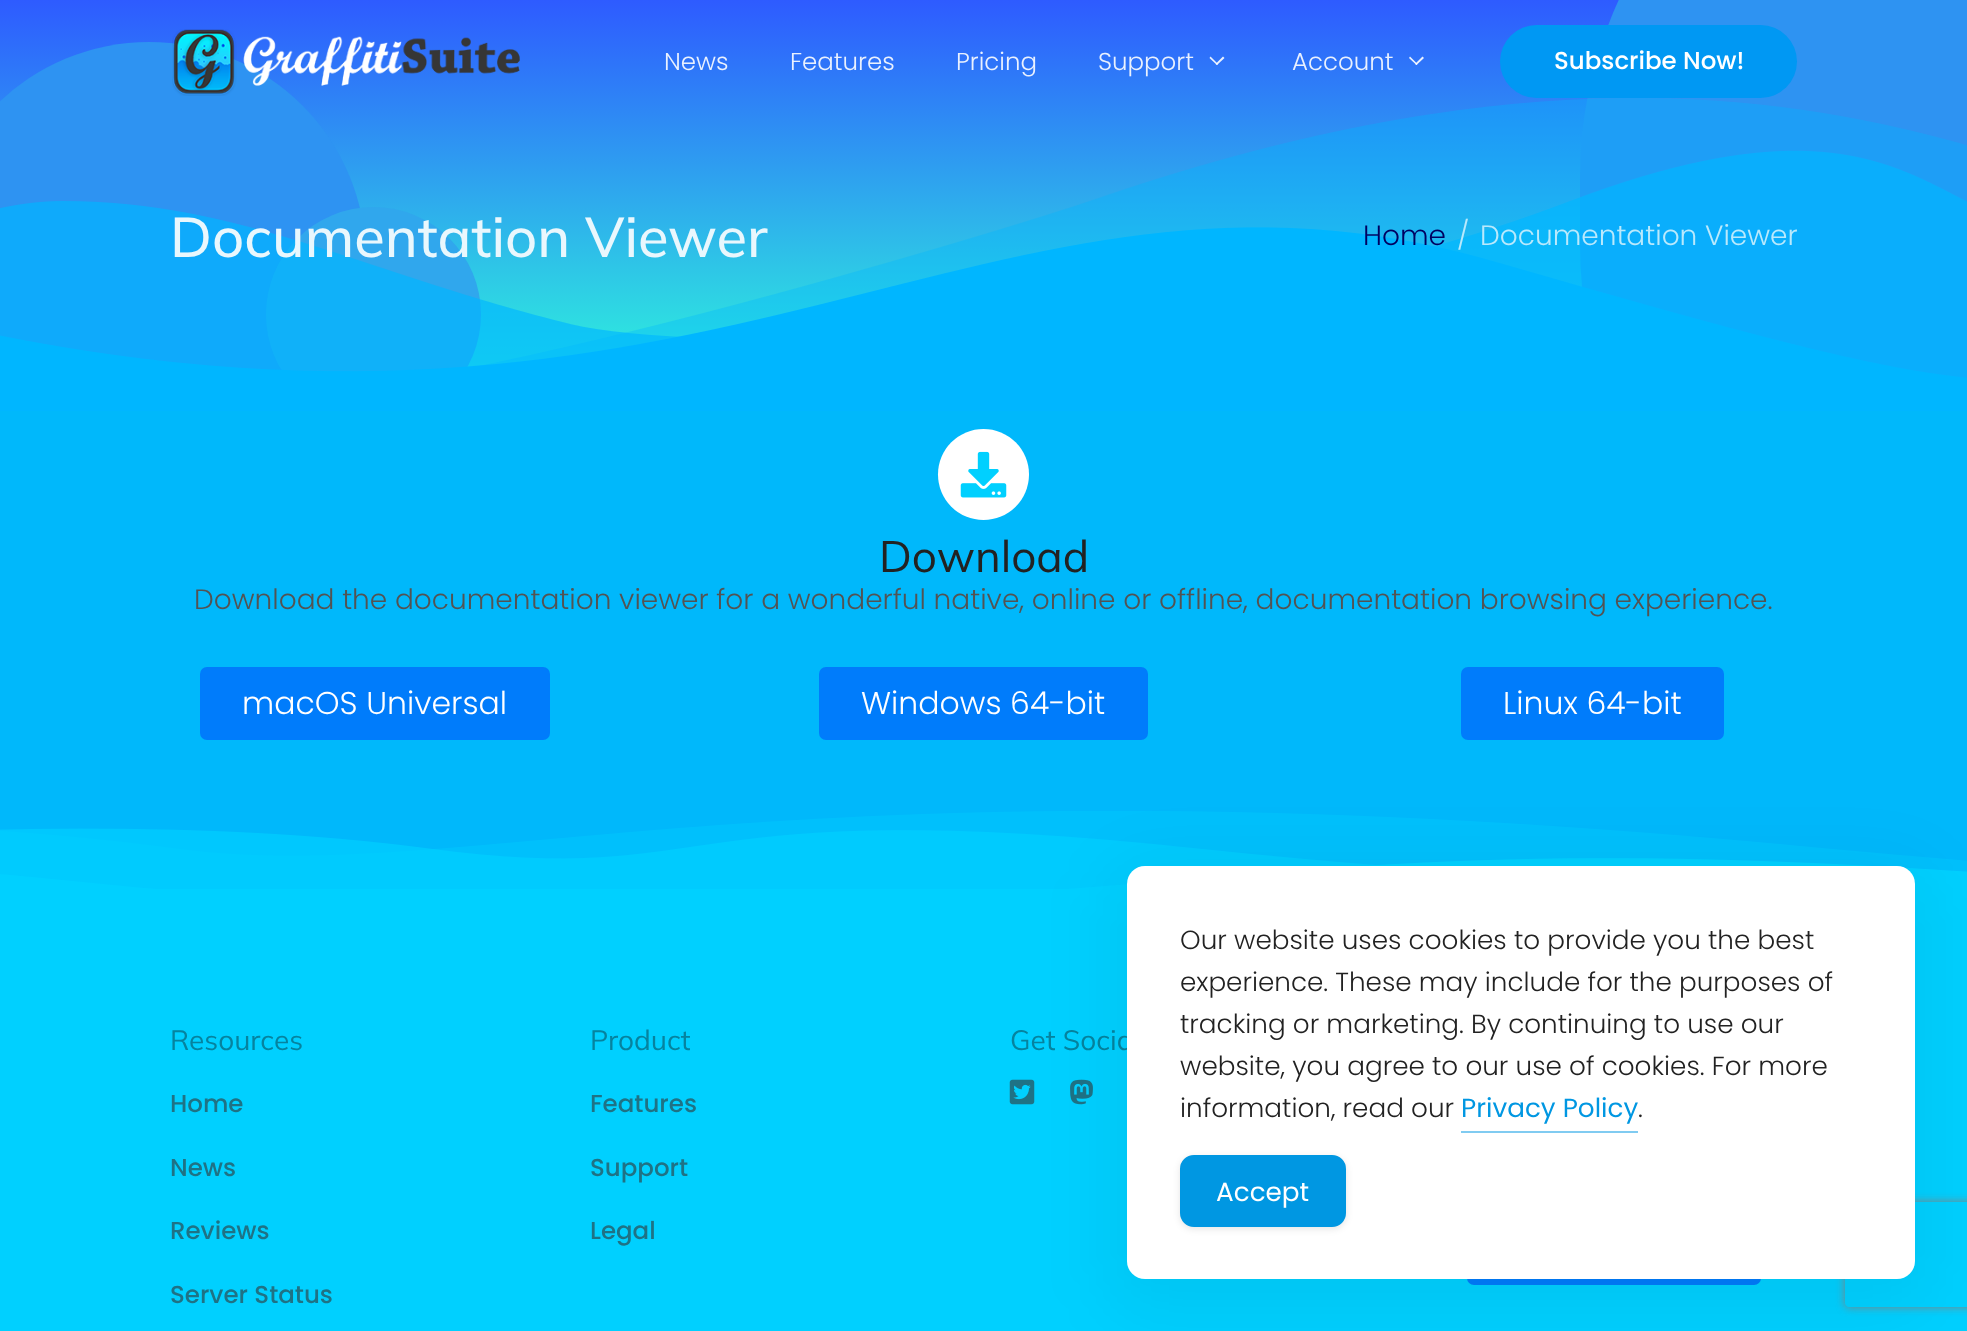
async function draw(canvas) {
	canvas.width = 1967;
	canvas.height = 1331;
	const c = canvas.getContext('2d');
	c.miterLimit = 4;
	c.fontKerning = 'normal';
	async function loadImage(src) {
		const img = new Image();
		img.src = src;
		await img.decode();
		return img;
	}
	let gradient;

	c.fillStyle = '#00b8fb';
	c.fillRect(0, 0, 1967, 1331);
	gradient = c.createLinearGradient(984, 0, 984, 411);
	gradient.addColorStop(0, '#2e5bff');
	gradient.addColorStop(1, '#2effda');
	c.fillStyle = gradient;
	c.fillRect(0, 0, 1632, 367);
	c.save();
	c.beginPath();
	c.rect(0, 0, 1967, 411);
	c.clip();
	c.fillStyle = '#2e93f2';
	c.beginPath();
	c.arc(149, 259, 217, 0, 2 * Math.PI);
	c.fill();
	c.restore();
	c.drawImage(await loadImage('img1.png'), 172, 29, 348, 67);
	c.font = '300 24.5px Poppins';
	c.fillStyle = '#eaf1fe';
	for (const [text, x, y] of [
		['News', 664, 70],
		['Features', 790, 70],
		['Pricing', 956, 70],
		['Support', 1098, 70],
	]) {
		c.fillText(text, x, y);
	}
	c.fillStyle = '#ffffffe6';
	c.beginPath();
	c.moveTo(1223, 56.5);
	c.lineTo(1224.5, 58);
	c.lineTo(1217, 65);
	c.lineTo(1215.5, 64);
	c.closePath();
	c.fill();
	c.beginPath();
	c.moveTo(1210.5, 56.5);
	c.lineTo(1218, 64);
	c.lineTo(1217, 65);
	c.lineTo(1209.5, 58);
	c.closePath();
	c.fill();
	c.fillStyle = '#eaf1fe';
	c.fillText('Account', 1292, 70);
	c.fillStyle = '#ffffffe6';
	c.beginPath();
	c.moveTo(1422.5, 56.5);
	c.lineTo(1424, 58);
	c.lineTo(1416.5, 65);
	c.lineTo(1415, 64);
	c.closePath();
	c.fill();
	c.beginPath();
	c.moveTo(1410, 56.5);
	c.lineTo(1417.5, 64);
	c.lineTo(1416.5, 65);
	c.lineTo(1409, 58);
	c.closePath();
	c.fill();
	c.save();
	c.beginPath();
	c.rect(0, 0, 1967, 411);
	c.clip();
	c.fillStyle = '#2e93f2';
	c.beginPath();
	c.roundRect(1580, -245, 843, 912, 456);
	c.fill();
	c.restore();
	c.fillStyle = '#0098f3';
	c.beginPath();
	c.roundRect(1500, 25, 297, 73, 36.5);
	c.fill();
	c.font = '500 24.5px Poppins';
	c.fillStyle = '#fff';
	c.fillText('Subscribe Now!', 1554, 69);
	c.save();
	c.beginPath();
	c.rect(0, 0, 1967, 411);
	c.clip();
	c.fillStyle = '#30a7ed';
	c.beginPath();
	c.arc(373.5, 314.5, 107.5, 0, 2 * Math.PI);
	c.fill();
	c.restore();
	c.drawImage(await loadImage('img2.png'), 0, 98, 1967, 313);
	c.font = '500 56px Mulish';
	c.fillStyle = '#e9f7fd';
	c.fillText('Documentation Viewer', 170, 257);
	c.font = '300 28px Poppins';
	c.fillStyle = '#000060';
	c.fillText('Home', 1363, 245);
	c.fillStyle = '#bae9fc';
	c.fillText('/', 1457, 245);
	c.fillText('Documentation Viewer', 1480, 245);
	c.fillStyle = '#fff';
	c.beginPath();
	c.arc(983.5, 474.5, 45.5, 0, 2 * Math.PI);
	c.fill();
	c.drawImage(await loadImage('img3.png'), 960, 451, 47, 47);
	c.font = '44px Mulish';
	c.fillStyle = '#222';
	c.fillText('Download', 879, 572);
	c.font = '300 28px Poppins';
	c.fillStyle = '#535353';
	c.fillText('Download the documentation viewer for a wonderful native, online or offline, documentation browsing experience.', 194, 609);
	c.fillStyle = '#007cfb';
	c.beginPath();
	c.roundRect(200, 667, 350, 73, 7);
	c.fill();
	c.font = '300 31.5px Poppins';
	c.fillStyle = '#fff';
	c.fillText('macOS Universal', 242, 714);
	c.fillStyle = '#007cfb';
	c.beginPath();
	c.roundRect(819, 667, 329, 73, 7);
	c.fill();
	c.fillStyle = '#fff';
	c.fillText('Windows 64-bit', 861, 714);
	c.fillStyle = '#007cfb';
	c.beginPath();
	c.roundRect(1461, 667, 263, 73, 7);
	c.fill();
	c.fillStyle = '#fff';
	c.fillText('Linux 64-bit', 1503, 714);
	c.fillStyle = '#00d0ff';
	c.fillRect(0, 889, 1967, 442);
	c.drawImage(await loadImage('img4.png'), 0, 811, 1967, 78);
	c.font = '28px Mulish';
	c.fillStyle = '#06839f';
	c.fillText('Resources', 170, 1050);
	c.font = '500 24.5px Poppins';
	c.fillStyle = '#1f7285';
	for (const [text, x, y] of [
		['Home', 170, 1112],
		['News', 170, 1176],
		['Reviews', 170, 1239],
		['Server Status', 170, 1303],
	]) {
		c.fillText(text, x, y);
	}
	c.font = '28px Mulish';
	c.fillStyle = '#06839f';
	c.fillText('Product', 590, 1050);
	c.font = '500 24.5px Poppins';
	c.fillStyle = '#1f7285';
	for (const [text, x, y] of [
		['Features', 590, 1112],
		['Support', 590, 1176],
		['Legal', 590, 1239],
	]) {
		c.fillText(text, x, y);
	}
	c.font = '28px Mulish';
	c.fillStyle = '#06839f';
	c.fillText('Get Socia', 1010, 1050);
	c.drawImage(await loadImage('img5.png'), 1009, 1079, 26, 26);
	c.drawImage(await loadImage('img6.png'), 1070, 1079, 23, 26);
	c.fillStyle = '#007cfb';
	c.beginPath();
	c.roundRect(1467, 1204, 294, 81, 7);
	c.fill();
	c.fillStyle = '#0000000d';
	c.filter = 'blur(35px)';
	c.beginPath();
	c.roundRect(1110, 866, 822, 448, 35);
	c.fill();
	c.filter = 'none';
	c.save();
	c.beginPath();
	c.moveTo(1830, 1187);
	c.lineTo(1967, 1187);
	c.lineTo(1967, 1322);
	c.lineTo(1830, 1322);
	c.closePath();
	c.moveTo(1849, 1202);
	c.lineTo(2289, 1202);
	c.bezierCurveTo(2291, 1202, 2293, 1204, 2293, 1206);
	c.lineTo(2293, 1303);
	c.bezierCurveTo(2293, 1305, 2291, 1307, 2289, 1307);
	c.lineTo(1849, 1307);
	c.bezierCurveTo(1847, 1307, 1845, 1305, 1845, 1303);
	c.lineTo(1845, 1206);
	c.bezierCurveTo(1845, 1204, 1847, 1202, 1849, 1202);
	c.closePath();
	c.clip('evenodd');
	c.fillStyle = '#808080';
	c.filter = 'blur(4.5px)';
	c.beginPath();
	c.roundRect(1845, 1202, 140, 105, 4);
	c.fill();
	c.filter = 'none';
	c.restore();
	c.fillStyle = '#fff';
	c.beginPath();
	c.roundRect(1127, 866, 788, 413, 18);
	c.fill();
	c.font = '300 26.25px Poppins';
	c.fillStyle = '#222';
	for (const [text, x, y] of [
		['Our website uses cookies to provide you the best', 1180, 949],
		['experience. These may include for the purposes of', 1180, 991],
		['tracking or marketing. By continuing to use our', 1180, 1033],
		['website, you agree to our use of cookies. For more', 1180, 1075],
		['information, read our', 1180, 1117],
	]) {
		c.fillText(text, x, y);
	}
	c.font = '26.25px Poppins';
	c.fillStyle = '#0097e2';
	c.fillText('Privacy Policy', 1461, 1117);
	c.fillStyle = '#80cbf1';
	c.fillRect(1461, 1131, 177, 2);
	c.font = '300 26.25px Poppins';
	c.fillStyle = '#222';
	c.fillText('.', 1638, 1117);
	c.fillStyle = '#0000001a';
	c.filter = 'blur(3.5px)';
	c.beginPath();
	c.roundRect(1180, 1157, 166, 72, 14);
	c.fill();
	c.filter = 'none';
	c.fillStyle = '#0097e2';
	c.beginPath();
	c.roundRect(1181, 1156, 164, 70, 13);
	c.fill();
	c.strokeStyle = '#0097e2';
	c.lineWidth = 2;
	c.stroke();
	c.font = '26.25px Poppins';
	c.fillStyle = '#fff';
	c.fillText('Accept', 1216, 1201);
}

draw(document.querySelector('canvas'));
